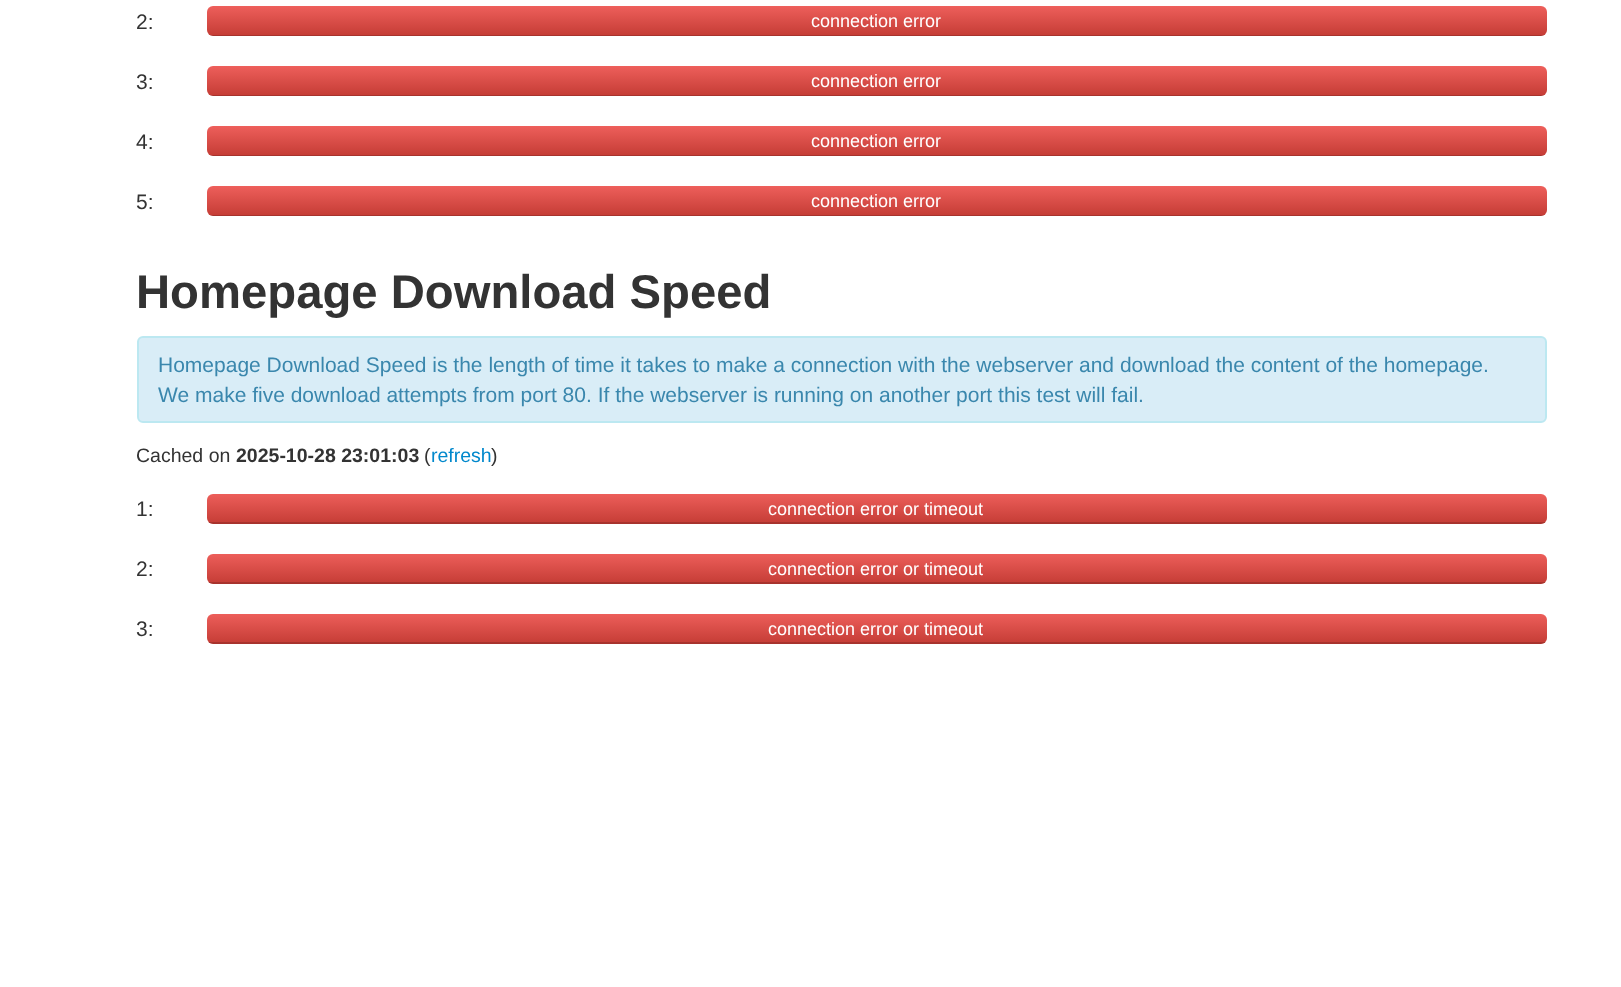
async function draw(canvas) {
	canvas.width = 1621;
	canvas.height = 987;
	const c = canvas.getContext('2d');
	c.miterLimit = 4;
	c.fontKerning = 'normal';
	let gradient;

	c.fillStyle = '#fff';
	c.fillRect(0, 0, 1621, 987);
	c.font = '21px Liberation Sans';
	c.fillStyle = '#333';
	c.fillText('2:', 136, 29);
	gradient = c.createLinearGradient(877, 6, 877, 36);
	gradient.addColorStop(0, '#ee5f5b');
	gradient.addColorStop(1, '#c43c35');
	c.fillStyle = gradient;
	c.beginPath();
	c.roundRect(207, 6, 1340, 30, 6);
	c.fill();
	c.save();
	c.beginPath();
	c.roundRect(207, 6, 1340, 30, 6);
	c.clip();
	c.fillStyle = '#00000026';
	c.fillRect(207, 35, 1340, 1);
	c.restore();
	c.font = '18px Liberation Sans';
	c.fillStyle = '#fff';
	c.fillText('connection error', 811, 27);
	c.font = '21px Liberation Sans';
	c.fillStyle = '#333';
	c.fillText('3:', 136, 89);
	gradient = c.createLinearGradient(877, 66, 877, 96);
	gradient.addColorStop(0, '#ee5f5b');
	gradient.addColorStop(1, '#c43c35');
	c.fillStyle = gradient;
	c.beginPath();
	c.roundRect(207, 66, 1340, 30, 6);
	c.fill();
	c.save();
	c.beginPath();
	c.roundRect(207, 66, 1340, 30, 6);
	c.clip();
	c.fillStyle = '#00000026';
	c.fillRect(207, 95, 1340, 1);
	c.restore();
	c.font = '18px Liberation Sans';
	c.fillStyle = '#fff';
	c.fillText('connection error', 811, 87);
	c.font = '21px Liberation Sans';
	c.fillStyle = '#333';
	c.fillText('4:', 136, 149);
	gradient = c.createLinearGradient(877, 126, 877, 156);
	gradient.addColorStop(0, '#ee5f5b');
	gradient.addColorStop(1, '#c43c35');
	c.fillStyle = gradient;
	c.beginPath();
	c.roundRect(207, 126, 1340, 30, 6);
	c.fill();
	c.save();
	c.beginPath();
	c.roundRect(207, 126, 1340, 30, 6);
	c.clip();
	c.fillStyle = '#00000026';
	c.fillRect(207, 155, 1340, 1);
	c.restore();
	c.font = '18px Liberation Sans';
	c.fillStyle = '#fff';
	c.fillText('connection error', 811, 147);
	c.font = '21px Liberation Sans';
	c.fillStyle = '#333';
	c.fillText('5:', 136, 209);
	gradient = c.createLinearGradient(877, 186, 877, 216);
	gradient.addColorStop(0, '#ee5f5b');
	gradient.addColorStop(1, '#c43c35');
	c.fillStyle = gradient;
	c.beginPath();
	c.roundRect(207, 186, 1340, 30, 6);
	c.fill();
	c.save();
	c.beginPath();
	c.roundRect(207, 186, 1340, 30, 6);
	c.clip();
	c.fillStyle = '#00000026';
	c.fillRect(207, 215, 1340, 1);
	c.restore();
	c.font = '18px Liberation Sans';
	c.fillStyle = '#fff';
	c.fillText('connection error', 811, 207);
	c.font = 'bold 47.25px Liberation Sans';
	c.fillStyle = '#333';
	c.fillText('Homepage Download Speed', 136, 308);
	c.fillStyle = '#d9edf7';
	c.beginPath();
	c.roundRect(138, 337, 1408, 85, 5);
	c.fill();
	c.strokeStyle = '#bce8f1';
	c.lineWidth = 2;
	c.stroke();
	c.font = '21px Liberation Sans';
	c.fillStyle = '#3a87ad';
	c.fillText('Homepage Download Speed is the length of time it takes to make a connection with the webserver and download the content of the homepage.', 158, 372);
	c.fillText('We make five download attempts from port 80. If the webserver is running on another port this test will fail.', 158, 402);
	c.font = '19.5px Liberation Sans';
	c.fillStyle = '#333';
	c.fillText('Cached on', 136, 462);
	c.font = 'bold 19.5px Liberation Sans';
	c.fillText('2025-10-28 23:01:03', 236, 462);
	c.font = '19.5px Liberation Sans';
	c.fillText('(', 424, 462);
	c.fillStyle = '#08c';
	c.fillText('refresh', 431, 462);
	c.fillStyle = '#333';
	c.fillText(')', 491, 462);
	c.font = '21px Liberation Sans';
	c.fillText('1:', 136, 516);
	gradient = c.createLinearGradient(877, 493, 877, 524);
	gradient.addColorStop(0, '#ee5f5b');
	gradient.addColorStop(1, '#c43c35');
	c.fillStyle = gradient;
	c.beginPath();
	c.roundRect(207, 494, 1340, 30, 6);
	c.fill();
	c.save();
	c.beginPath();
	c.roundRect(207, 494, 1340, 30, 6);
	c.clip();
	c.fillStyle = '#00000026';
	c.fillRect(207, 522, 1340, 2);
	c.restore();
	c.font = '18px Liberation Sans';
	c.fillStyle = '#fff';
	c.fillText('connection error or timeout', 768, 515);
	c.font = '21px Liberation Sans';
	c.fillStyle = '#333';
	c.fillText('2:', 136, 576);
	gradient = c.createLinearGradient(877, 553, 877, 584);
	gradient.addColorStop(0, '#ee5f5b');
	gradient.addColorStop(1, '#c43c35');
	c.fillStyle = gradient;
	c.beginPath();
	c.roundRect(207, 554, 1340, 30, 6);
	c.fill();
	c.save();
	c.beginPath();
	c.roundRect(207, 554, 1340, 30, 6);
	c.clip();
	c.fillStyle = '#00000026';
	c.fillRect(207, 582, 1340, 2);
	c.restore();
	c.font = '18px Liberation Sans';
	c.fillStyle = '#fff';
	c.fillText('connection error or timeout', 768, 575);
	c.font = '21px Liberation Sans';
	c.fillStyle = '#333';
	c.fillText('3:', 136, 636);
	gradient = c.createLinearGradient(877, 613, 877, 644);
	gradient.addColorStop(0, '#ee5f5b');
	gradient.addColorStop(1, '#c43c35');
	c.fillStyle = gradient;
	c.beginPath();
	c.roundRect(207, 614, 1340, 30, 6);
	c.fill();
	c.save();
	c.beginPath();
	c.roundRect(207, 614, 1340, 30, 6);
	c.clip();
	c.fillStyle = '#00000026';
	c.fillRect(207, 642, 1340, 2);
	c.restore();
	c.font = '18px Liberation Sans';
	c.fillStyle = '#fff';
	c.fillText('connection error or timeout', 768, 635);
}

draw(document.querySelector('canvas'));
